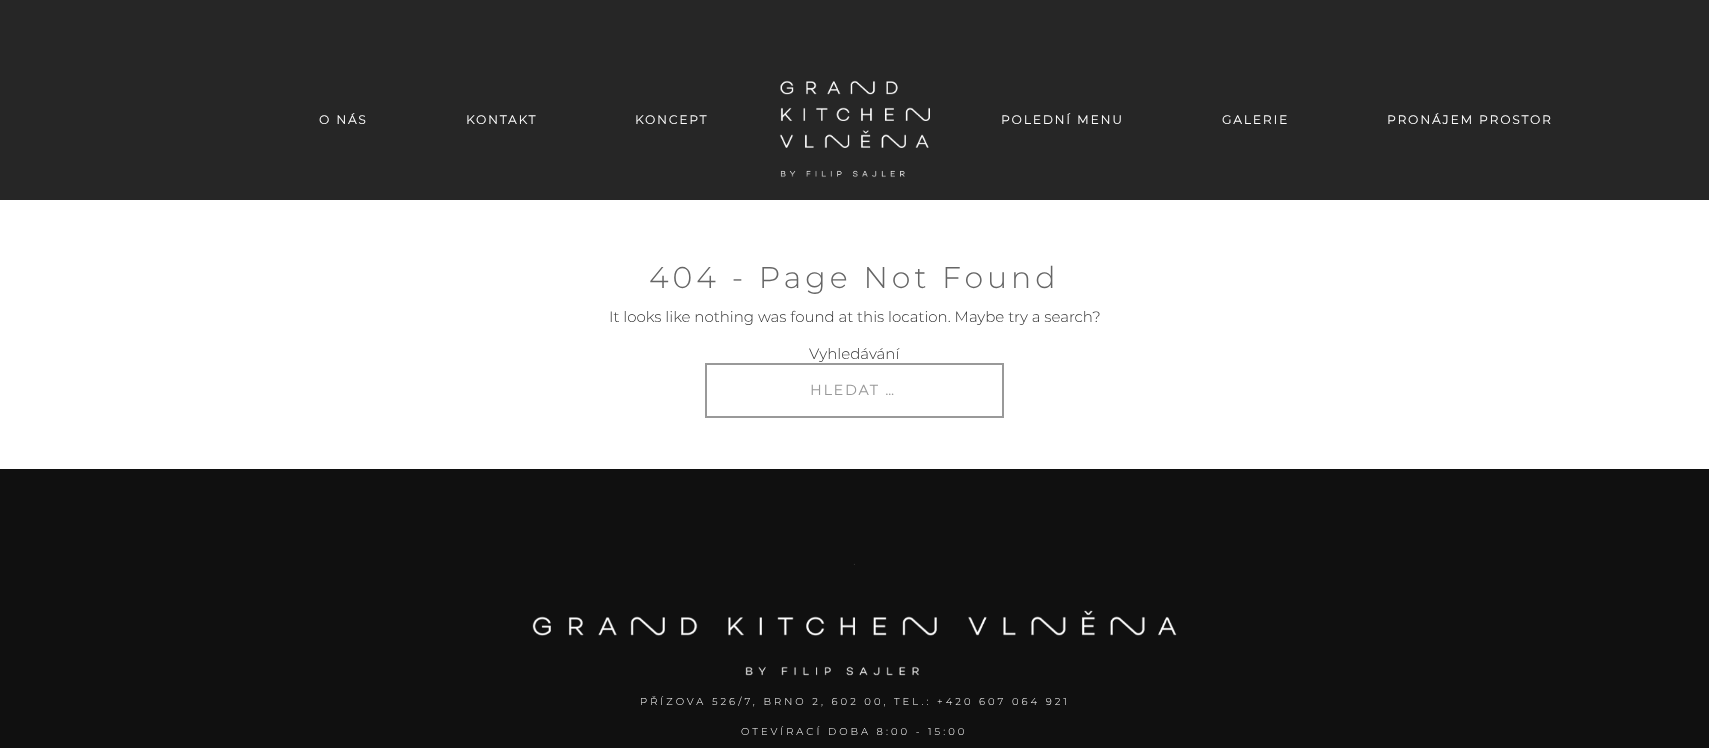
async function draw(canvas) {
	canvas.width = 1709;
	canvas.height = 748;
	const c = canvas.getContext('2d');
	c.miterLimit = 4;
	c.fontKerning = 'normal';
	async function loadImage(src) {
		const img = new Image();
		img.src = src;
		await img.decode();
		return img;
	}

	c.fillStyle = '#fff';
	c.fillRect(0, 0, 1709, 748);
	c.fillStyle = '#262626';
	c.fillRect(0, 0, 1709, 200);
	c.letterSpacing = '2px';
	c.font = 'bold 12px Montserrat';
	c.fillStyle = '#fff';
	for (const [text, x, y] of [
		['O NÁS', 319, 124],
		['KONTAKT', 466, 124],
		['KONCEPT', 635, 124],
	]) {
		c.fillText(text, x, y);
	}
	c.drawImage(await loadImage('img1.png'), 779, 80, 151, 98);
	for (const [text, x, y] of [
		['POLEDNÍ MENU', 1001, 124],
		['GALERIE', 1222, 124],
		['PRONÁJEM PROSTOR', 1387, 124],
	]) {
		c.fillText(text, x, y);
	}
	c.letterSpacing = '4px';
	c.font = '100 30px Montserrat';
	c.fillStyle = '#666';
	c.fillText('404 - Page Not Found', 649, 288);
	c.letterSpacing = '0px';
	c.font = '100 15px Montserrat';
	c.fillStyle = '#333';
	c.fillText('It looks like nothing was found at this location. Maybe try a search?', 609, 322);
	c.fillText('Vyhledávání', 809, 359);
	c.strokeStyle = '#999';
	c.lineWidth = 2;
	c.strokeRect(706, 364, 297, 53);
	c.letterSpacing = '2px';
	c.font = 'bold 14px Montserrat';
	c.fillStyle = '#999';
	c.fillText('HLEDAT …', 810, 395);
	c.fillStyle = '#101010';
	c.fillRect(0, 469, 1709, 279);
	c.letterSpacing = '0px';
	c.font = '100 14px Montserrat';
	c.fillStyle = '#333';
	c.fillText('.', 853, 565);
	c.drawImage(await loadImage('img2.png'), 532, 610, 645, 66);
	c.letterSpacing = '3px';
	c.font = '100 10px Montserrat';
	c.fillStyle = '#fff';
	c.fillText('PŘÍZOVA 526/7, BRNO 2, 602 00, TEL.: +420 607 064 921', 640, 705);
	c.fillText('OTEVÍRACÍ DOBA 8:00 - 15:00', 741, 735);
}

draw(document.querySelector('canvas'));
